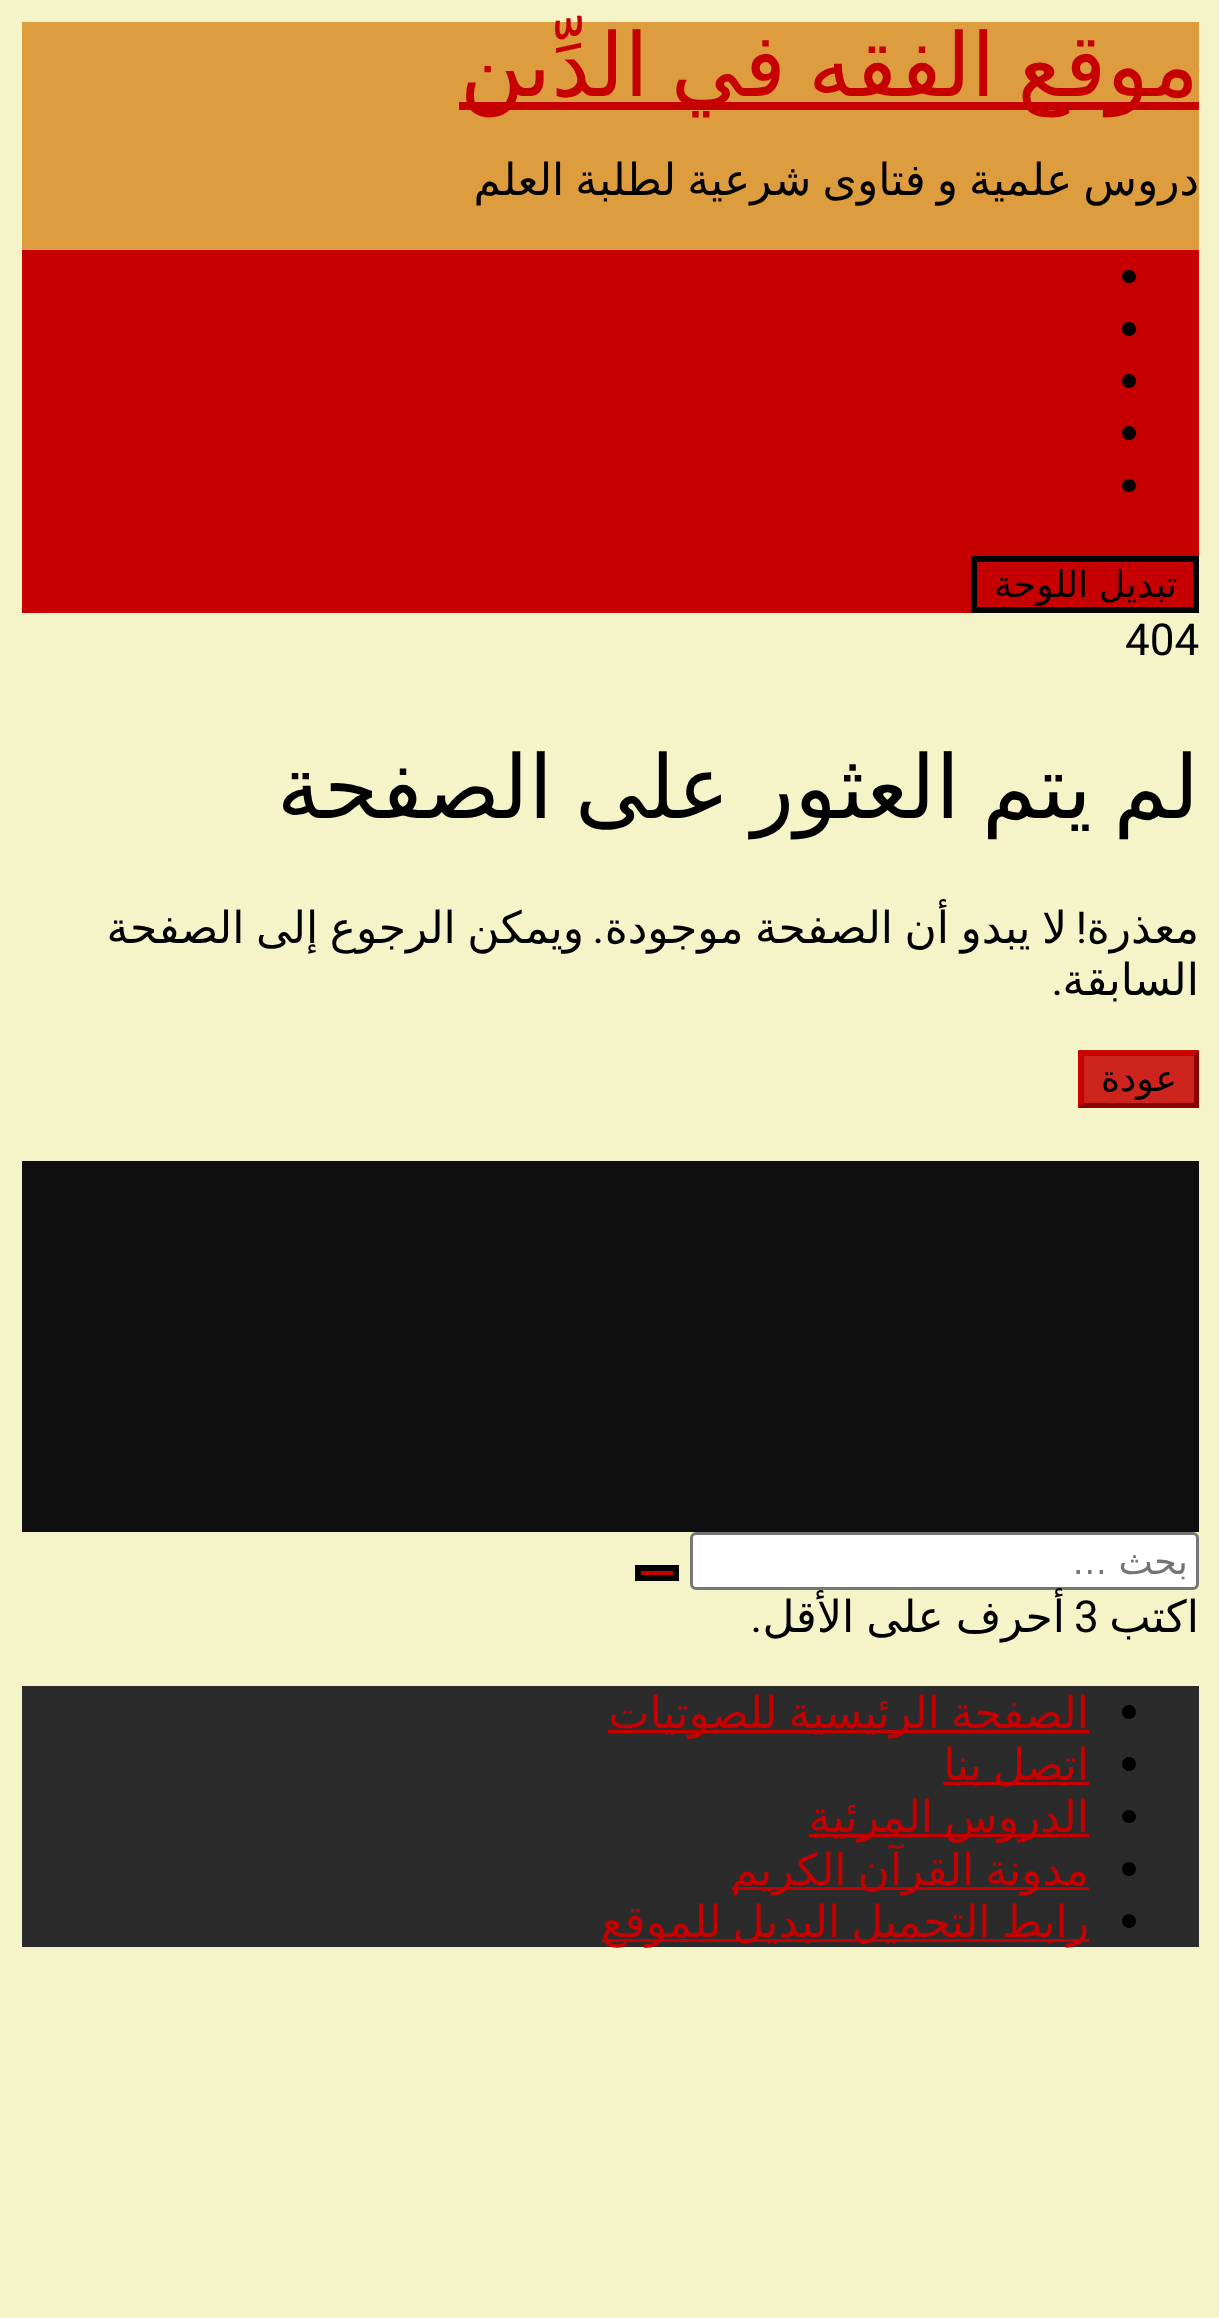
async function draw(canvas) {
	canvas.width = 1219;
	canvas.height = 2318;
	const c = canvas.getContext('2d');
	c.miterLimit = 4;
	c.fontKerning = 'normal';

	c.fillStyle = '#f4f4c8';
	c.fillRect(0, 0, 1219, 2318);
	c.fillStyle = '#dd9d3e';
	c.fillRect(22, 22, 1177, 228);
	c.fillStyle = '#c60000';
	c.fillRect(459, 102, 740, 8);
	c.wordSpacing = '-6px';
	c.direction = 'rtl';
	c.font = '88px DejaVu Sans';
	c.fillText('موقع الفقه في الدِّين', 1199, 96);
	c.wordSpacing = '-3px';
	c.font = '44px DejaVu Sans';
	c.fillStyle = '#000';
	c.fillText('دروس علمية و فتاوى شرعية لطلبة العلم', 1199, 195);
	c.fillStyle = '#c60000';
	c.fillRect(22, 250, 1177, 363);
	c.fillStyle = '#000';
	c.beginPath();
	c.roundRect(1122, 270, 14, 13, 6.5);
	c.fill();
	c.beginPath();
	c.arc(1129, 329, 7, 0, 2 * Math.PI);
	c.fill();
	c.beginPath();
	c.arc(1129, 381, 7, 0, 2 * Math.PI);
	c.fill();
	c.beginPath();
	c.arc(1129, 433, 7, 0, 2 * Math.PI);
	c.fill();
	c.beginPath();
	c.roundRect(1122, 479, 14, 13, 6.5);
	c.fill();
	c.strokeStyle = '#000';
	c.lineWidth = 6;
	c.strokeRect(974, 559, 222, 51);
	c.wordSpacing = '-1px';
	c.font = '36.5px DejaVu Sans';
	c.fillText('تبديل اللوحة', 1177, 597);
	c.wordSpacing = '0px';
	c.direction = 'ltr';
	c.font = '44px Roboto';
	c.fillText('404', 1125, 655);
	c.wordSpacing = '-6px';
	c.direction = 'rtl';
	c.font = '88px DejaVu Sans';
	c.fillText('لم يتم العثور على الصفحة', 1199, 818);
	c.wordSpacing = '0px';
	c.font = '44px DejaVu Sans';
	c.fillText('معذرة', 1199, 943);
	c.font = '44px Roboto';
	c.fillText('!', 1087, 943);
	c.wordSpacing = '-2.5px';
	c.font = '44px DejaVu Sans';
	c.fillText('لا يبدو أن الصفحة موجودة', 1067, 943);
	c.wordSpacing = '0px';
	c.font = '44px Roboto';
	c.fillText('.', 604, 943);
	c.wordSpacing = '-2.5px';
	c.font = '44px DejaVu Sans';
	c.fillText('ويمكن الرجوع إلى الصفحة', 584, 943);
	c.wordSpacing = '0px';
	c.fillText('السابقة', 1199, 995);
	c.font = '44px Roboto';
	c.fillText('.', 1063, 995);
	c.fillStyle = '#cd251e';
	c.fillRect(1078, 1051, 121, 57);
	c.fillStyle = '#c60000f2';
	c.beginPath();
	c.moveTo(1078, 1050);
	c.lineTo(1199, 1050);
	c.lineTo(1194, 1056);
	c.lineTo(1084, 1056);
	c.closePath();
	c.fill();
	c.fillStyle = '#840000f2';
	c.beginPath();
	c.moveTo(1199, 1050);
	c.lineTo(1199, 1108);
	c.lineTo(1194, 1103);
	c.lineTo(1194, 1056);
	c.closePath();
	c.fill();
	c.beginPath();
	c.moveTo(1199, 1108);
	c.lineTo(1078, 1108);
	c.lineTo(1084, 1103);
	c.lineTo(1194, 1103);
	c.closePath();
	c.fill();
	c.fillStyle = '#c60000f2';
	c.beginPath();
	c.moveTo(1078, 1108);
	c.lineTo(1078, 1050);
	c.lineTo(1084, 1056);
	c.lineTo(1084, 1103);
	c.closePath();
	c.fill();
	c.font = '36.5px DejaVu Sans';
	c.fillStyle = '#000';
	c.fillText('عودة', 1177, 1091);
	c.fillStyle = '#0f0f0f';
	c.fillRect(22, 1161, 1177, 371);
	c.fillStyle = '#fff';
	c.beginPath();
	c.roundRect(691.5, 1533.5, 506, 55, 4.5);
	c.fill();
	c.strokeStyle = '#767676';
	c.lineWidth = 3;
	c.stroke();
	c.fillStyle = '#757575';
	c.fillText('بحث', 1188, 1574);
	c.font = '36.5px Liberation Sans';
	c.fillText('…', 1108, 1574);
	c.fillStyle = '#c60000';
	c.beginPath();
	c.rect(638, 1568, 38, 10);
	c.fill();
	c.strokeStyle = '#000';
	c.lineWidth = 6;
	c.stroke();
	c.font = '44px DejaVu Sans';
	c.fillStyle = '#000';
	c.fillText('اكتب', 1199, 1632);
	c.direction = 'ltr';
	c.font = '44px Roboto';
	c.fillText('3', 1074, 1632);
	c.wordSpacing = '-2px';
	c.direction = 'rtl';
	c.font = '44px DejaVu Sans';
	c.fillText('أحرف على الأقل', 1065, 1632);
	c.wordSpacing = '0px';
	c.font = '44px Roboto';
	c.fillText('.', 762, 1632);
	c.fillStyle = '#2b2b2b';
	c.fillRect(22, 1686, 1177, 261);
	c.fillStyle = '#000';
	c.beginPath();
	c.arc(1129, 1712, 7, 0, 2 * Math.PI);
	c.fill();
	c.fillStyle = '#c60000';
	c.fillRect(608, 1730, 481, 3);
	c.wordSpacing = '-3px';
	c.font = '44px DejaVu Sans';
	c.fillText('الصفحة الرئيسية للصوتيات', 1089, 1728);
	c.fillStyle = '#000';
	c.beginPath();
	c.arc(1129, 1764, 7, 0, 2 * Math.PI);
	c.fill();
	c.fillStyle = '#c60000';
	c.fillRect(943, 1782, 146, 3);
	c.fillText('اتصل بنا', 1089, 1780);
	c.fillStyle = '#000';
	c.beginPath();
	c.roundRect(1122, 1810, 14, 13, 6.5);
	c.fill();
	c.fillStyle = '#c60000';
	c.fillRect(809, 1834, 280, 3);
	c.fillText('الدروس المرئية', 1089, 1832);
	c.fillStyle = '#000';
	c.beginPath();
	c.arc(1129, 1869, 7, 0, 2 * Math.PI);
	c.fill();
	c.fillStyle = '#c60000';
	c.fillRect(732, 1887, 357, 3);
	c.fillText('مدونة القرآن الكريم', 1089, 1885);
	c.fillStyle = '#000';
	c.beginPath();
	c.arc(1129, 1921, 7, 0, 2 * Math.PI);
	c.fill();
	c.fillStyle = '#c60000';
	c.fillRect(602, 1939, 487, 3);
	c.fillText('رابط التحميل البديل للموقع', 1089, 1937);
}

draw(document.querySelector('canvas'));
